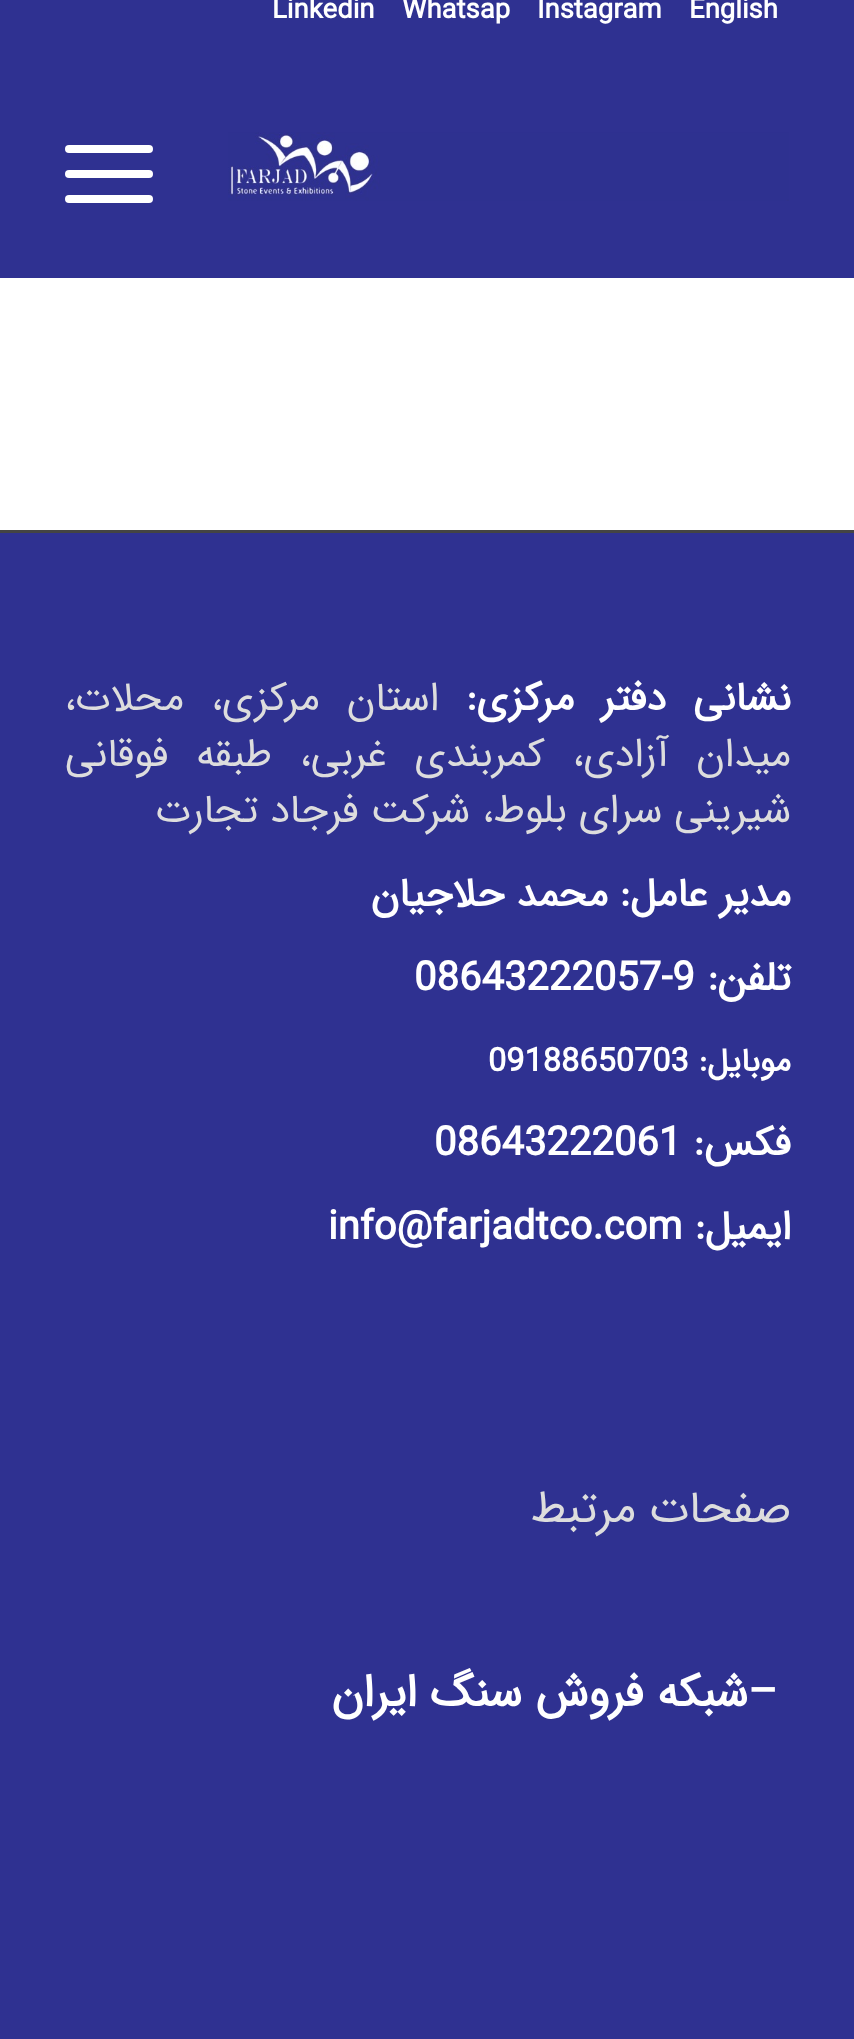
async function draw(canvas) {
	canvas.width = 854;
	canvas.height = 2039;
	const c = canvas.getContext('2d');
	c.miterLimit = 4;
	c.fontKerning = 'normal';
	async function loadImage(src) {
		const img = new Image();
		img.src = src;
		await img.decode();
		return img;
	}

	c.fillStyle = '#2f3191';
	c.fillRect(0, 0, 854, 2039);
	c.font = 'bold 27.5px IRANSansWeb';
	c.fillStyle = '#fff';
	for (const [text, x, y] of [
		['English', 689, 18],
		['Instagram', 537, 18],
		['Whatsap', 402, 18],
		['Linkedin', 272, 18],
	]) {
		c.fillText(text, x, y);
	}
	c.drawImage(await loadImage('img1.png'), 228, 132, 561, 69);
	c.beginPath();
	c.roundRect(65, 170, 88, 8, 4);
	c.fill();
	c.beginPath();
	c.roundRect(65, 145, 88, 8, 4);
	c.fill();
	c.beginPath();
	c.roundRect(65, 195, 88, 8, 4);
	c.fill();
	c.fillRect(0, 278, 854, 252);
	c.fillStyle = '#444';
	c.fillRect(0, 530, 854, 3);
	c.wordSpacing = '15px';
	c.direction = 'rtl';
	c.font = 'bold 40px IRANSansWeb';
	c.fillStyle = '#fff';
	c.fillText('نشانی دفتر مرکزی:', 791, 710);
	c.font = '40px IRANSansWeb';
	c.fillStyle = '#ddd';
	c.fillText('استان مرکزی، محلات،', 439, 710);
	c.wordSpacing = '15.5px';
	c.fillText('میدان آزادی، کمربندی غربی، طبقه فوقانی', 791, 766);
	c.wordSpacing = '0px';
	c.fillText('شیرینی سرای بلوط، شرکت فرجاد تجارت', 791, 822);
	c.font = 'bold 40px IRANSansWeb';
	c.fillStyle = '#fff';
	for (const [text, x, y] of [
		['مدیر عامل:', 791, 906],
		['محمد حلاجیان', 608, 906],
		['تلفن:', 791, 990],
	]) {
		c.fillText(text, x, y);
	}
	c.direction = 'ltr';
	c.fillText('08643222057-9', 414, 990);
	c.direction = 'rtl';
	c.font = 'bold 32.5px IRANSansWeb';
	c.fillText('موبایل:', 791, 1071);
	c.direction = 'ltr';
	c.fillText('09188650703', 488, 1071);
	c.direction = 'rtl';
	c.font = 'bold 40px IRANSansWeb';
	c.fillText('فکس:', 791, 1155);
	c.direction = 'ltr';
	c.fillText('08643222061', 434, 1155);
	c.direction = 'rtl';
	c.fillText('ایمیل:', 791, 1239);
	c.direction = 'ltr';
	c.fillText('info@farjadtco.com', 328, 1239);
	c.direction = 'rtl';
	c.font = '45px IRANSansWeb';
	c.fillStyle = '#ddd';
	c.fillText('صفحات مرتبط', 791, 1522);
	c.direction = 'ltr';
	c.font = 'bold 45px IRANSansWeb';
	c.fillStyle = '#fff';
	c.fillText('–', 748, 1706);
	c.direction = 'rtl';
	c.fillText('شبکه فروش سنگ ایران', 748, 1706);
}

draw(document.querySelector('canvas'));
